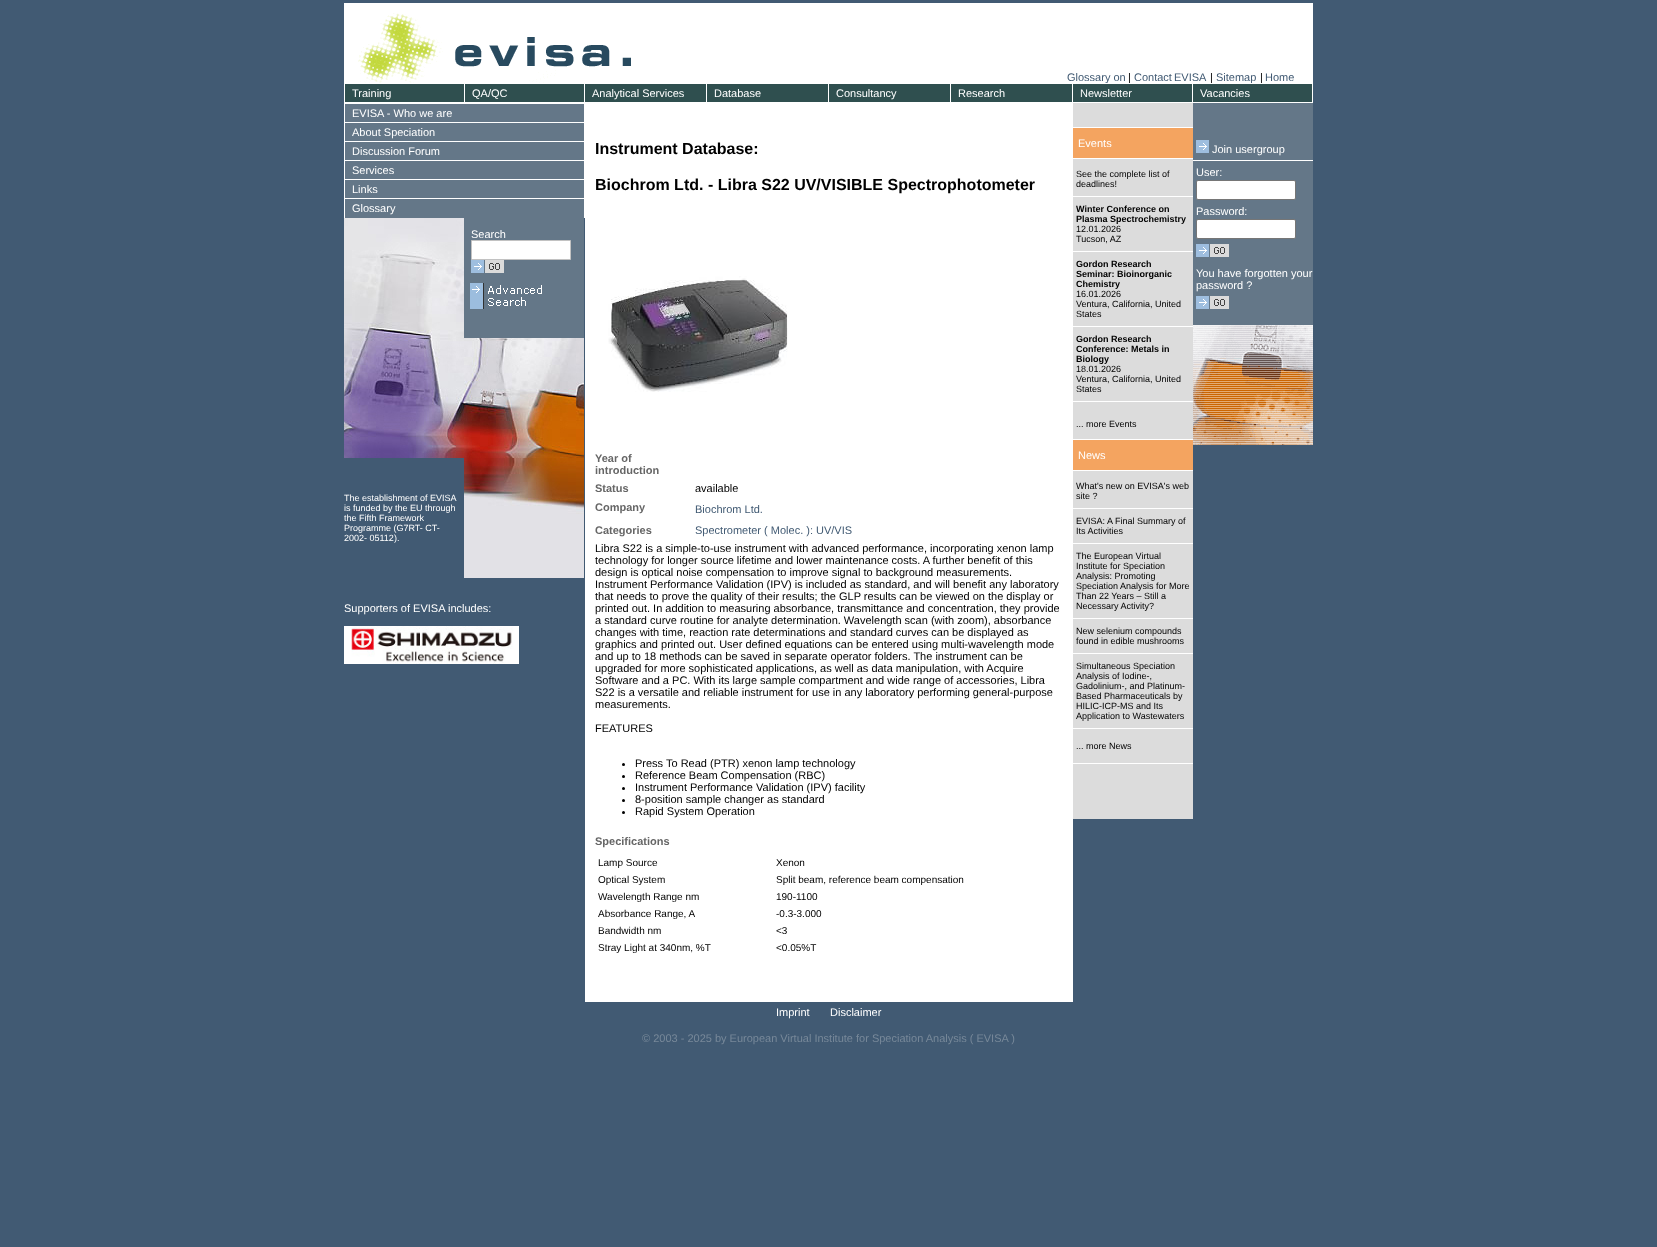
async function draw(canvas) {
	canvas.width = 1657;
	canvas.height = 1247;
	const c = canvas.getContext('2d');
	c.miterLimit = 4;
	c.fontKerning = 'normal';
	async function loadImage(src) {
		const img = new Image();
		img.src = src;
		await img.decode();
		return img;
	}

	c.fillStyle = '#415a73';
	c.fillRect(0, 0, 1657, 1247);
	c.fillStyle = '#fff';
	c.fillRect(344, 3, 969, 80);
	c.drawImage(await loadImage('img1.png'), 358, 13, 273, 70);
	c.font = '11px Liberation Sans';
	c.fillStyle = '#415a73';
	c.fillText('Glossary on', 1067, 81);
	c.fillStyle = '#000';
	c.fillText('|', 1128, 81);
	c.wordSpacing = '-1px';
	c.fillStyle = '#415a73';
	c.fillText('Contact EVISA', 1134, 81);
	c.wordSpacing = '0px';
	c.fillStyle = '#000';
	c.fillText('|', 1210, 81);
	c.fillStyle = '#415a73';
	c.fillText('Sitemap', 1216, 81);
	c.fillStyle = '#000';
	c.fillText('|', 1260, 81);
	c.fillStyle = '#415a73';
	c.fillText('Home', 1265, 81);
	c.fillStyle = '#fff';
	c.fillRect(344, 83, 969, 20);
	c.fillStyle = '#2f4f4f';
	c.fillRect(345, 84, 119, 18);
	c.fillStyle = '#fff';
	c.fillText('Training', 352, 97);
	c.fillStyle = '#2f4f4f';
	c.fillRect(465, 84, 119, 18);
	c.fillStyle = '#fff';
	c.fillText('QA/QC', 472, 97);
	c.fillStyle = '#2f4f4f';
	c.fillRect(585, 84, 121, 18);
	c.fillStyle = '#fff';
	c.fillText('Analytical Services', 592, 97);
	c.fillStyle = '#2f4f4f';
	c.fillRect(707, 84, 121, 18);
	c.fillStyle = '#fff';
	c.fillText('Database', 714, 97);
	c.fillStyle = '#2f4f4f';
	c.fillRect(829, 84, 121, 18);
	c.fillStyle = '#fff';
	c.fillText('Consultancy', 836, 97);
	c.fillStyle = '#2f4f4f';
	c.fillRect(951, 84, 121, 18);
	c.fillStyle = '#fff';
	c.fillText('Research', 958, 97);
	c.fillStyle = '#2f4f4f';
	c.fillRect(1073, 84, 119, 18);
	c.fillStyle = '#fff';
	c.fillText('Newsletter', 1080, 97);
	c.fillStyle = '#2f4f4f';
	c.fillRect(1193, 84, 119, 18);
	c.fillStyle = '#fff';
	c.fillText('Vacancies', 1200, 97);
	c.fillRect(344, 103, 241, 115);
	c.fillStyle = '#647788';
	c.fillRect(345, 104, 239, 18);
	c.fillStyle = '#fff';
	c.fillText('EVISA - Who we are', 352, 117);
	c.fillStyle = '#647788';
	c.fillRect(345, 123, 239, 18);
	c.fillStyle = '#fff';
	c.fillText('About Speciation', 352, 136);
	c.fillStyle = '#647788';
	c.fillRect(345, 142, 239, 18);
	c.fillStyle = '#fff';
	c.fillText('Discussion Forum', 352, 155);
	c.fillStyle = '#647788';
	c.fillRect(345, 161, 239, 18);
	c.fillStyle = '#fff';
	c.fillText('Services', 352, 174);
	c.fillStyle = '#647788';
	c.fillRect(345, 180, 239, 18);
	c.fillStyle = '#fff';
	c.fillText('Links', 352, 193);
	c.fillStyle = '#647788';
	c.fillRect(345, 199, 239, 19);
	c.fillStyle = '#fff';
	c.fillText('Glossary', 352, 212);
	c.drawImage(await loadImage('img2.png'), 344, 218, 120, 120);
	c.fillStyle = '#647788';
	c.fillRect(464, 218, 120, 120);
	c.fillStyle = '#fff';
	c.fillText('Search', 471, 238);
	c.beginPath();
	c.rect(471.5, 240.5, 99, 19);
	c.fill();
	c.strokeStyle = '#c2c2c2';
	c.stroke();
	c.drawImage(await loadImage('img3.png'), 471, 260, 33, 13);
	c.drawImage(await loadImage('img4.png'), 470, 283, 72, 26);
	c.drawImage(await loadImage('img5.png'), 344, 338, 120, 120);
	c.drawImage(await loadImage('img6.png'), 464, 338, 120, 120);
	c.font = '9px Liberation Sans';
	for (const [text, x, y] of [
		['The establishment of EVISA', 344, 501],
		['is funded by the EU through', 344, 511],
		['the Fifth Framework', 344, 521],
		['Programme (G7RT- CT-', 344, 531],
		['2002- 05112).', 344, 541],
	]) {
		c.fillText(text, x, y);
	}
	c.drawImage(await loadImage('img7.png'), 464, 458, 120, 120);
	c.font = '11px Liberation Sans';
	c.fillText('Supporters of EVISA includes:', 344, 612);
	c.drawImage(await loadImage('img8.png'), 344, 626, 175, 38);
	c.fillRect(585, 103, 488, 899);
	c.font = 'bold 16px Liberation Sans';
	c.fillStyle = '#000';
	c.fillText('Instrument Database:', 595, 154);
	c.fillText('Biochrom Ltd. - Libra S22 UV/VISIBLE Spectrophotometer', 595, 190);
	c.drawImage(await loadImage('img9.png'), 608, 276, 180, 116);
	c.font = 'bold 11px Liberation Sans';
	c.fillStyle = '#666';
	for (const [text, x, y] of [
		['Year of', 595, 462],
		['introduction', 595, 474],
		['Status', 595, 492],
	]) {
		c.fillText(text, x, y);
	}
	c.font = '11px Liberation Sans';
	c.fillStyle = '#000';
	c.fillText('available', 695, 492);
	c.font = 'bold 11px Liberation Sans';
	c.fillStyle = '#666';
	c.fillText('Company', 595, 511);
	c.font = '11px Liberation Sans';
	c.fillStyle = '#415a73';
	c.fillText('Biochrom Ltd.', 695, 513);
	c.font = 'bold 11px Liberation Sans';
	c.fillStyle = '#666';
	c.fillText('Categories', 595, 534);
	c.font = '11px Liberation Sans';
	c.fillStyle = '#415a73';
	c.fillText('Spectrometer ( Molec. ): UV/VIS', 695, 534);
	c.fillStyle = '#000';
	for (const [text, x, y] of [
		['Libra S22 is a simple-to-use instrument with advanced performance, incorporating xenon lamp', 595, 552],
		['technology for longer source lifetime and lower maintenance costs. A further benefit of this', 595, 564],
		['design is optical noise compensation to improve signal to background measurements.', 595, 576],
		['Instrument Performance Validation (IPV) is included as standard, and will benefit any laboratory', 595, 588],
		['that needs to prove the quality of their results; the GLP results can be viewed on the display or', 595, 600],
		['printed out. In addition to measuring absorbance, transmittance and concentration, they provide', 595, 612],
		['a standard curve routine for analyte determination. Wavelength scan (with zoom), absorbance', 595, 624],
		['changes with time, reaction rate determinations and standard curves can be displayed as', 595, 636],
		['graphics and printed out. User defined equations can be entered using multi-wavelength mode', 595, 648],
		['and up to 18 methods can be saved in separate operator folders. The instrument can be', 595, 660],
		['upgraded for more sophisticated applications, as well as data manipulation, with Acquire', 595, 672],
		['Software and a PC. With its large sample compartment and wide range of accessories, Libra', 595, 684],
		['S22 is a versatile and reliable instrument for use in any laboratory performing general-purpose', 595, 696],
		['measurements.', 595, 708],
		['FEATURES', 595, 732],
	]) {
		c.fillText(text, x, y);
	}
	c.beginPath();
	c.arc(623.5, 764.5, 1.5, 0, 2 * Math.PI);
	c.fill();
	c.fillText('Press To Read (PTR) xenon lamp technology', 635, 767);
	c.beginPath();
	c.arc(623.5, 776.5, 1.5, 0, 2 * Math.PI);
	c.fill();
	c.fillText('Reference Beam Compensation (RBC)', 635, 779);
	c.beginPath();
	c.arc(623.5, 788.5, 1.5, 0, 2 * Math.PI);
	c.fill();
	c.fillText('Instrument Performance Validation (IPV) facility', 635, 791);
	c.beginPath();
	c.arc(623.5, 800.5, 1.5, 0, 2 * Math.PI);
	c.fill();
	c.fillText('8-position sample changer as standard', 635, 803);
	c.beginPath();
	c.arc(623.5, 812.5, 1.5, 0, 2 * Math.PI);
	c.fill();
	c.fillText('Rapid System Operation', 635, 815);
	c.font = 'bold 11px Liberation Sans';
	c.fillStyle = '#666';
	c.fillText('Specifications', 595, 845);
	c.font = '10px Liberation Sans';
	c.fillStyle = '#000';
	for (const [text, x, y] of [
		['Lamp Source', 598, 866],
		['Xenon', 776, 866],
		['Optical System', 598, 883],
		['Split beam, reference beam compensation', 776, 883],
		['Wavelength Range nm', 598, 900],
		['190-1100', 776, 900],
		['Absorbance Range, A', 598, 917],
		['-0.3-3.000', 776, 917],
		['Bandwidth nm', 598, 934],
		['<3', 776, 934],
		['Stray Light at 340nm, %T', 598, 951],
		['<0.05%T', 776, 951],
	]) {
		c.fillText(text, x, y);
	}
	for (const [x, y, w, h, color] of [
		[1073, 103, 120, 716, '#dcdcdc'],
		[1073, 127, 120, 1, '#fff'],
		[1073, 128, 120, 30, '#f4a460'],
	]) {
		c.fillStyle = color;
		c.fillRect(x, y, w, h);
	}
	c.font = '11px Liberation Sans';
	c.fillStyle = '#fff';
	c.fillText('Events', 1078, 147);
	c.fillRect(1073, 158, 120, 1);
	c.font = '9px Liberation Sans';
	c.fillStyle = '#000';
	c.fillText('See the complete list of', 1076, 177);
	c.fillText('deadlines!', 1076, 187);
	c.fillStyle = '#fff';
	c.fillRect(1073, 196, 120, 1);
	c.font = 'bold 9px Liberation Sans';
	c.fillStyle = '#000';
	c.fillText('Winter Conference on', 1076, 212);
	c.fillText('Plasma Spectrochemistry', 1076, 222);
	c.font = '9px Liberation Sans';
	c.fillText('12.01.2026', 1076, 232);
	c.fillText('Tucson, AZ', 1076, 242);
	c.fillStyle = '#fff';
	c.fillRect(1073, 251, 120, 1);
	c.font = 'bold 9px Liberation Sans';
	c.fillStyle = '#000';
	for (const [text, x, y] of [
		['Gordon Research', 1076, 267],
		['Seminar: Bioinorganic', 1076, 277],
		['Chemistry', 1076, 287],
	]) {
		c.fillText(text, x, y);
	}
	c.font = '9px Liberation Sans';
	for (const [text, x, y] of [
		['16.01.2026', 1076, 297],
		['Ventura, California, United', 1076, 307],
		['States', 1076, 317],
	]) {
		c.fillText(text, x, y);
	}
	c.fillStyle = '#fff';
	c.fillRect(1073, 326, 120, 1);
	c.font = 'bold 9px Liberation Sans';
	c.fillStyle = '#000';
	for (const [text, x, y] of [
		['Gordon Research', 1076, 342],
		['Conference: Metals in', 1076, 352],
		['Biology', 1076, 362],
	]) {
		c.fillText(text, x, y);
	}
	c.font = '9px Liberation Sans';
	for (const [text, x, y] of [
		['18.01.2026', 1076, 372],
		['Ventura, California, United', 1076, 382],
		['States', 1076, 392],
	]) {
		c.fillText(text, x, y);
	}
	c.fillStyle = '#fff';
	c.fillRect(1073, 401, 120, 1);
	c.fillStyle = '#000';
	c.fillText('... more Events', 1076, 427);
	c.fillStyle = '#fff';
	c.fillRect(1073, 439, 120, 1);
	c.fillStyle = '#f4a460';
	c.fillRect(1073, 440, 120, 30);
	c.font = '11px Liberation Sans';
	c.fillStyle = '#fff';
	c.fillText('News', 1078, 459);
	c.fillRect(1073, 470, 120, 1);
	c.font = '9px Liberation Sans';
	c.fillStyle = '#000';
	c.fillText('What\'s new on EVISA\'s web', 1076, 489);
	c.fillText('site ?', 1076, 499);
	c.fillStyle = '#fff';
	c.fillRect(1073, 508, 120, 1);
	c.fillStyle = '#000';
	c.fillText('EVISA: A Final Summary of', 1076, 524);
	c.fillText('Its Activities', 1076, 534);
	c.fillStyle = '#fff';
	c.fillRect(1073, 543, 120, 1);
	c.fillStyle = '#000';
	for (const [text, x, y] of [
		['The European Virtual', 1076, 559],
		['Institute for Speciation', 1076, 569],
		['Analysis: Promoting', 1076, 579],
		['Speciation Analysis for More', 1076, 589],
		['Than 22 Years – Still a', 1076, 599],
		['Necessary Activity?', 1076, 609],
	]) {
		c.fillText(text, x, y);
	}
	c.fillStyle = '#fff';
	c.fillRect(1073, 618, 120, 1);
	c.fillStyle = '#000';
	c.fillText('New selenium compounds', 1076, 634);
	c.fillText('found in edible mushrooms', 1076, 644);
	c.fillStyle = '#fff';
	c.fillRect(1073, 653, 120, 1);
	c.fillStyle = '#000';
	for (const [text, x, y] of [
		['Simultaneous Speciation', 1076, 669],
		['Analysis of Iodine-,', 1076, 679],
		['Gadolinium-, and Platinum-', 1076, 689],
		['Based Pharmaceuticals by', 1076, 699],
		['HILIC-ICP-MS and Its', 1076, 709],
		['Application to Wastewaters', 1076, 719],
	]) {
		c.fillText(text, x, y);
	}
	c.fillStyle = '#fff';
	c.fillRect(1073, 728, 120, 1);
	c.fillStyle = '#000';
	c.fillText('... more News', 1076, 749);
	c.fillStyle = '#fff';
	c.fillRect(1073, 763, 120, 1);
	c.fillStyle = '#647788';
	c.fillRect(1193, 103, 120, 222);
	c.drawImage(await loadImage('img10.png'), 1196, 140, 13, 13);
	c.font = '11px Liberation Sans';
	c.fillStyle = '#fff';
	c.fillText('Join usergroup', 1212, 153);
	c.fillRect(1193, 160, 120, 1);
	c.fillText('User:', 1196, 176);
	c.beginPath();
	c.roundRect(1196.5, 180.5, 99, 19, 1.5);
	c.fill();
	c.strokeStyle = '#767676';
	c.stroke();
	c.fillText('Password:', 1196, 215);
	c.beginPath();
	c.roundRect(1196.5, 219.5, 99, 19, 1.5);
	c.fill();
	c.stroke();
	c.drawImage(await loadImage('img3.png'), 1196, 244, 33, 13);
	c.fillText('You have forgotten your', 1196, 277);
	c.fillText('password ?', 1196, 289);
	c.drawImage(await loadImage('img3.png'), 1196, 296, 33, 13);
	c.drawImage(await loadImage('img11.png'), 1193, 325, 120, 120);
	c.fillText('Imprint', 776, 1016);
	c.fillText('Disclaimer', 830, 1016);
	c.fillStyle = '#789';
	c.fillText('© 2003 - 2025 by European Virtual Institute for Speciation Analysis ( EVISA )', 642, 1042);
}

draw(document.querySelector('canvas'));
